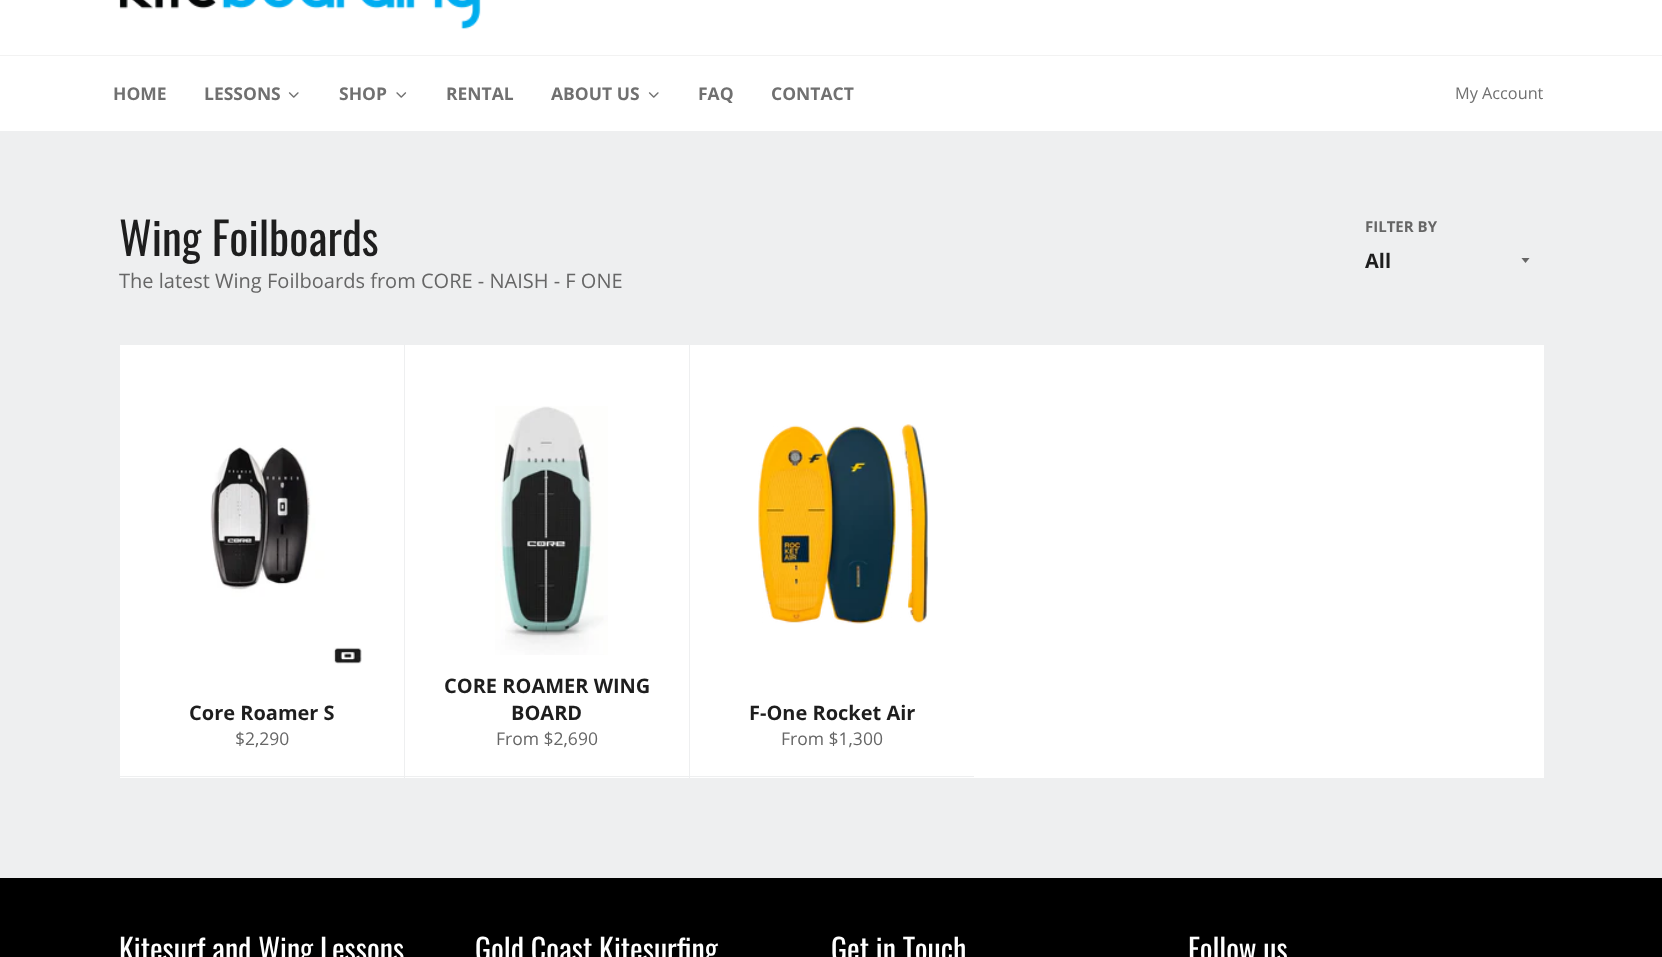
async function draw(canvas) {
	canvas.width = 1662;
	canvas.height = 957;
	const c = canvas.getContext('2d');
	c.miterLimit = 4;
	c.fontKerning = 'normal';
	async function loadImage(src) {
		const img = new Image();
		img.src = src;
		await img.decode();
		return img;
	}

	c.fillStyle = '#eeeff0';
	c.fillRect(0, 0, 1662, 957);
	c.fillStyle = '#fff';
	c.fillRect(0, 0, 1662, 55);
	c.drawImage(await loadImage('img1.png'), 119, 0, 362, 29);
	c.fillRect(0, 56, 1662, 75);
	c.fillStyle = '#f2f2f2';
	c.fillRect(0, 55, 1662, 1);
	c.font = 'bold 17.5px Open Sans';
	c.fillStyle = '#707070';
	c.fillText('HOME', 113, 100);
	c.fillText('LESSONS', 204, 100);
	c.drawImage(await loadImage('img2.png'), 288, 92, 11, 6);
	c.fillText('SHOP', 339, 100);
	c.drawImage(await loadImage('img3.png'), 396, 92, 11, 6);
	c.fillText('RENTAL', 446, 100);
	c.fillText('ABOUT US', 551, 100);
	c.drawImage(await loadImage('img2.png'), 648, 92, 11, 6);
	c.fillText('FAQ', 698, 100);
	c.fillText('CONTACT', 771, 100);
	c.font = '16.25px Open Sans';
	c.fillText('My Account', 1455, 99);
	c.font = '45px Oswald';
	c.fillStyle = '#1e1e1e';
	c.fillText('Wing Foilboards', 119, 256);
	c.font = '20px Open Sans';
	c.fillStyle = '#666';
	c.fillText('The latest Wing Foilboards from CORE - NAISH - F ONE', 119, 288);
	c.font = 'bold 15px Open Sans';
	c.fillText('FILTER BY', 1365, 232);
	c.save();
	c.beginPath();
	c.rect(1521, 258, 10, 6);
	c.clip();
	c.beginPath();
	c.moveTo(1521, 257.5);
	c.lineTo(1525.5, 263);
	c.lineTo(1530, 257.5);
	c.closePath();
	c.fill();
	c.restore();
	c.font = 'bold 20px Open Sans';
	c.fillStyle = '#1e1e1e';
	c.fillText('All', 1365, 268);
	c.fillStyle = '#fff';
	c.fillRect(120, 345, 1424, 433);
	c.fillStyle = '#eeeff0';
	c.fillRect(119, 776, 855, 1);
	c.drawImage(await loadImage('img4.png'), 210, 445, 152, 219);
	c.fillStyle = '#1e1e1e';
	c.fillText('Core Roamer S', 189, 720);
	c.font = '17.5px Open Sans';
	c.fillStyle = '#666';
	c.fillText('$2,290', 235, 745);
	c.fillStyle = '#eeeff0';
	c.fillRect(404, 345, 1, 433);
	c.drawImage(await loadImage('img5.png'), 495, 406, 113, 249);
	c.font = 'bold 20px Open Sans';
	c.fillStyle = '#1e1e1e';
	c.fillText('CORE ROAMER WING', 444, 693);
	c.fillText('BOARD', 511, 720);
	c.font = '17.5px Open Sans';
	c.fillStyle = '#666';
	c.fillText('From $2,690', 496, 745);
	c.fillStyle = '#eeeff0';
	c.fillRect(689, 345, 1, 433);
	c.drawImage(await loadImage('img6.png'), 758, 424, 170, 200);
	c.font = 'bold 20px Open Sans';
	c.fillStyle = '#1e1e1e';
	c.fillText('F-One Rocket Air', 749, 720);
	c.font = '17.5px Open Sans';
	c.fillStyle = '#666';
	c.fillText('From $1,300', 781, 745);
	c.fillStyle = '#000';
	c.fillRect(0, 878, 1662, 79);
	c.font = '30px Oswald';
	c.fillStyle = '#fff';
	for (const [text, x, y] of [
		['Kitesurf and Wing Lessons', 119, 961],
		['Gold Coast Kitesurfing', 475, 961],
		['Get in Touch', 831, 961],
		['Follow us', 1188, 961],
	]) {
		c.fillText(text, x, y);
	}
}

draw(document.querySelector('canvas'));
